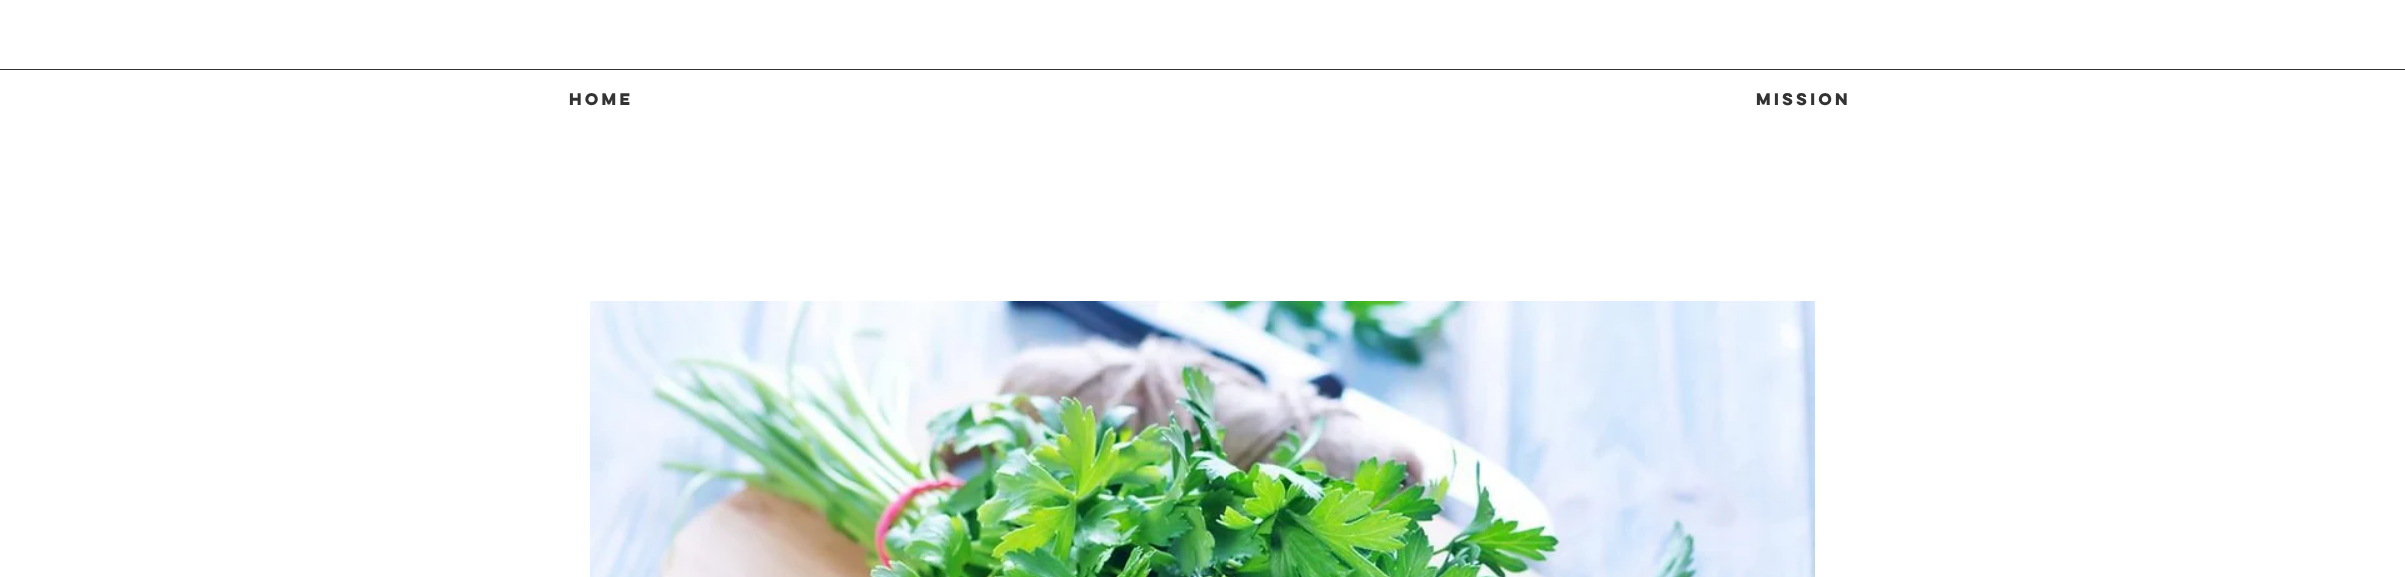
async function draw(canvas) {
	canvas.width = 2405;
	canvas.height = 577;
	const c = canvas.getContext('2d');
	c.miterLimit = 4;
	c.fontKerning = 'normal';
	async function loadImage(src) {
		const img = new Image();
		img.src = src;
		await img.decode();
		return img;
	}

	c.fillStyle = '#fff';
	c.fillRect(0, 0, 2405, 577);
	c.fillStyle = '#333';
	c.fillRect(0, 69, 2405, 1);
	c.font = 'bold 15px "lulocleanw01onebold"';
	c.fillText('Home', 569, 105);
	c.fillText('Mission', 1756, 105);
	c.drawImage(await loadImage('img1.png'), 590, 301, 1225, 276);
}

draw(document.querySelector('canvas'));
